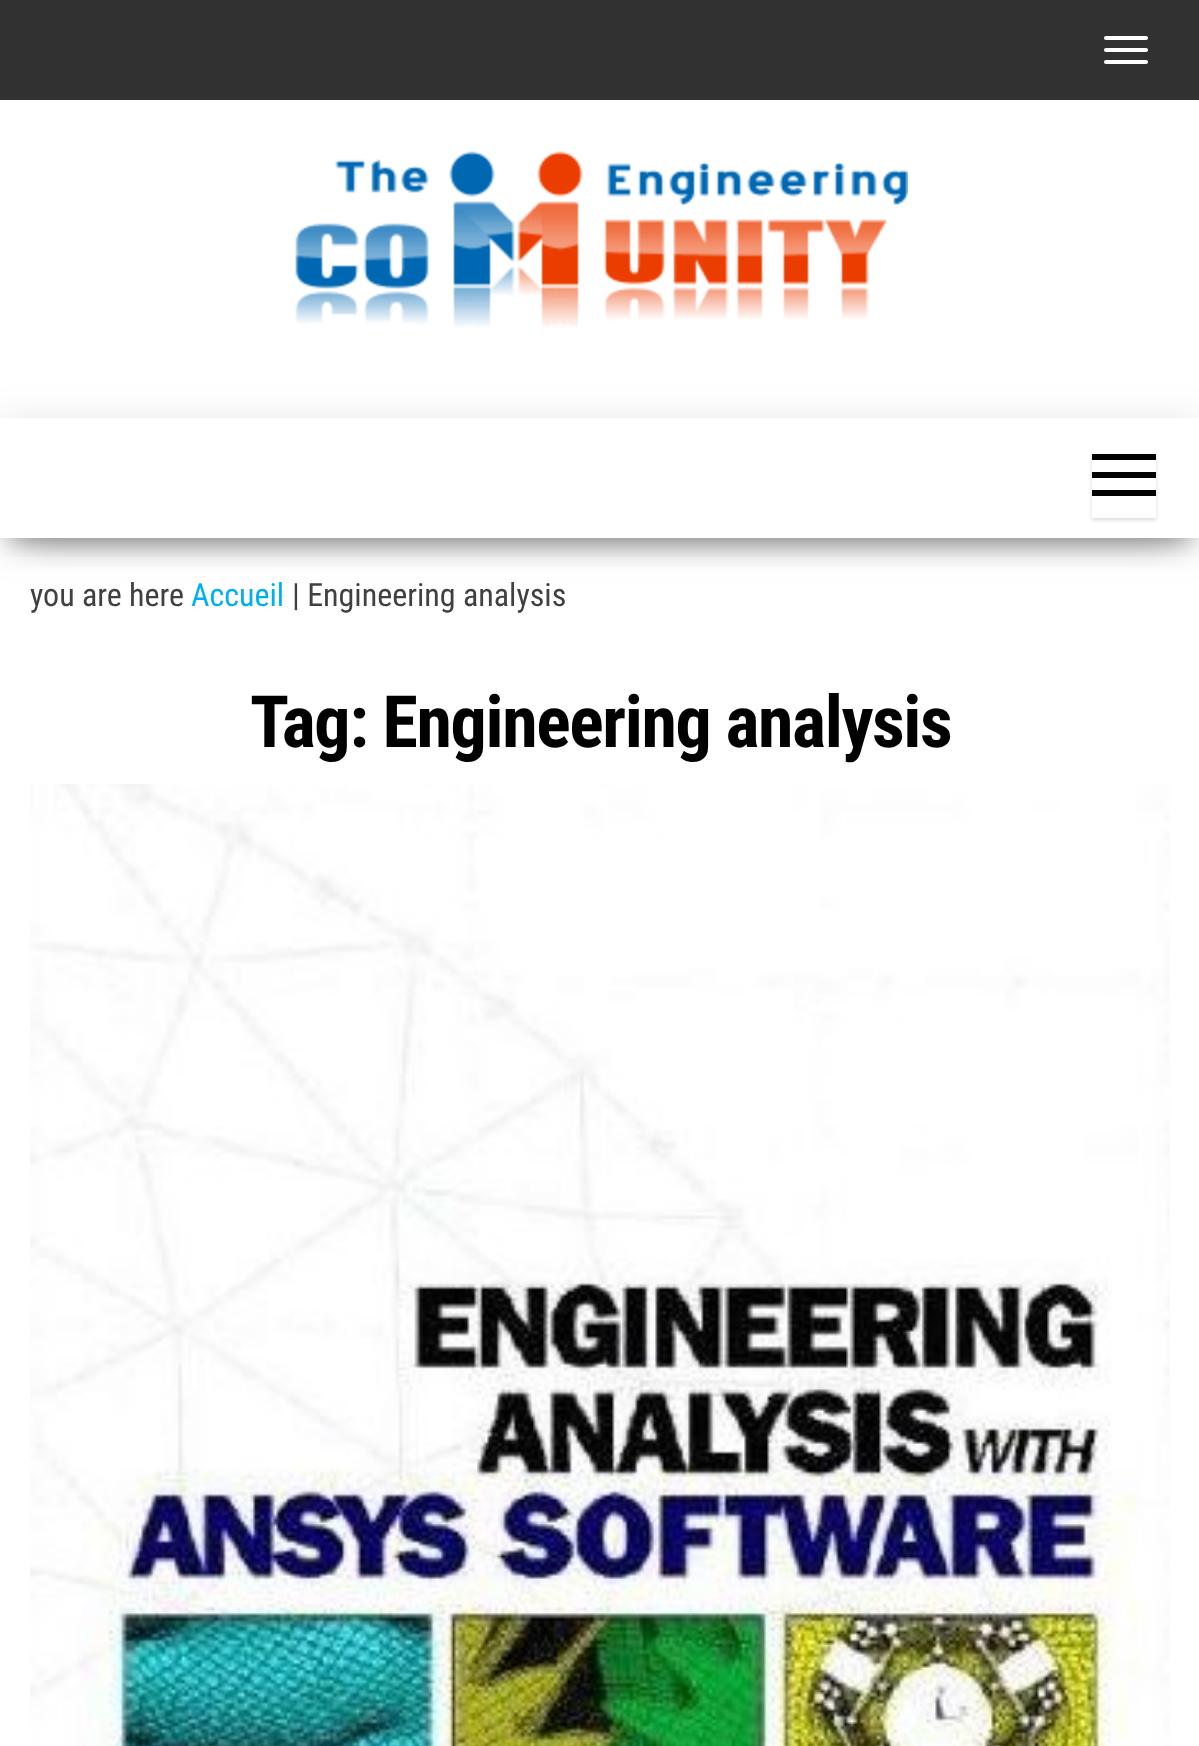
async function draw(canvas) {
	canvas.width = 1199;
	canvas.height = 1746;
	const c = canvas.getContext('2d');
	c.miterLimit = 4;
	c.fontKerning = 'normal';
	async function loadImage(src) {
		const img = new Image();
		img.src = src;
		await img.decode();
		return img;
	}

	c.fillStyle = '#fff';
	c.fillRect(0, 0, 1199, 1746);
	c.fillStyle = '#313131';
	c.fillRect(0, 0, 1199, 100);
	c.fillStyle = '#fff';
	c.beginPath();
	c.roundRect(1104, 36, 44, 4, 2);
	c.fill();
	c.beginPath();
	c.roundRect(1104, 48, 44, 4, 2);
	c.fill();
	c.beginPath();
	c.roundRect(1104, 60, 44, 4, 2);
	c.fill();
	c.drawImage(await loadImage('img1.png'), 295, 151, 613, 177);
	c.save();
	c.beginPath();
	c.rect(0, 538, 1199, 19);
	c.clip();
	c.fillStyle = '#00000033';
	c.filter = 'blur(10px)';
	c.beginPath();
	c.rect(10, 444, 1180, 100);
	c.fill();
	c.filter = 'none';
	c.restore();
	c.save();
	c.beginPath();
	c.moveTo(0, 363);
	c.lineTo(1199, 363);
	c.lineTo(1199, 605);
	c.lineTo(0, 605);
	c.closePath();
	c.moveTo(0, 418);
	c.lineTo(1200, 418);
	c.lineTo(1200, 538);
	c.lineTo(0, 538);
	c.closePath();
	c.clip('evenodd');
	c.fillStyle = '#0000001f';
	c.filter = 'blur(20px)';
	c.beginPath();
	c.rect(0, 424, 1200, 120);
	c.fill();
	c.filter = 'none';
	c.restore();
	c.save();
	c.beginPath();
	c.rect(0, 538, 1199, 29);
	c.clip();
	c.fillStyle = '#0000006b';
	c.filter = 'blur(20px)';
	c.beginPath();
	c.rect(24, 462, 1152, 72);
	c.fill();
	c.filter = 'none';
	c.restore();
	c.save();
	c.beginPath();
	c.moveTo(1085, 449);
	c.lineTo(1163, 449);
	c.lineTo(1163, 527);
	c.lineTo(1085, 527);
	c.closePath();
	c.moveTo(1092, 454);
	c.lineTo(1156, 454);
	c.lineTo(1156, 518);
	c.lineTo(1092, 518);
	c.closePath();
	c.clip('evenodd');
	c.fillStyle = '#00000026';
	c.filter = 'blur(2px)';
	c.beginPath();
	c.rect(1092, 456, 64, 64);
	c.fill();
	c.filter = 'none';
	c.restore();
	for (const [x, y, w, h, color] of [
		[1092, 454, 64, 6, '#000'],
		[1092, 472, 64, 6, '#000'],
		[1092, 490, 64, 6, '#000'],
	]) {
		c.fillStyle = color;
		c.fillRect(x, y, w, h);
	}
	c.font = '32px Roboto Condensed';
	c.fillStyle = '#404040';
	c.fillText('you are here', 30, 606);
	c.fillStyle = '#00aff2';
	c.fillText('Accueil', 191, 606);
	c.fillStyle = '#404040';
	c.fillText('| Engineering analysis', 292, 606);
	c.letterSpacing = '-1.4px';
	c.font = 'bold 72px Roboto Condensed';
	c.fillStyle = '#000';
	c.fillText('Tag: Engineering analysis', 250, 747);
	c.drawImage(await loadImage('img2.png'), 30, 784, 1140, 962);
}

draw(document.querySelector('canvas'));
